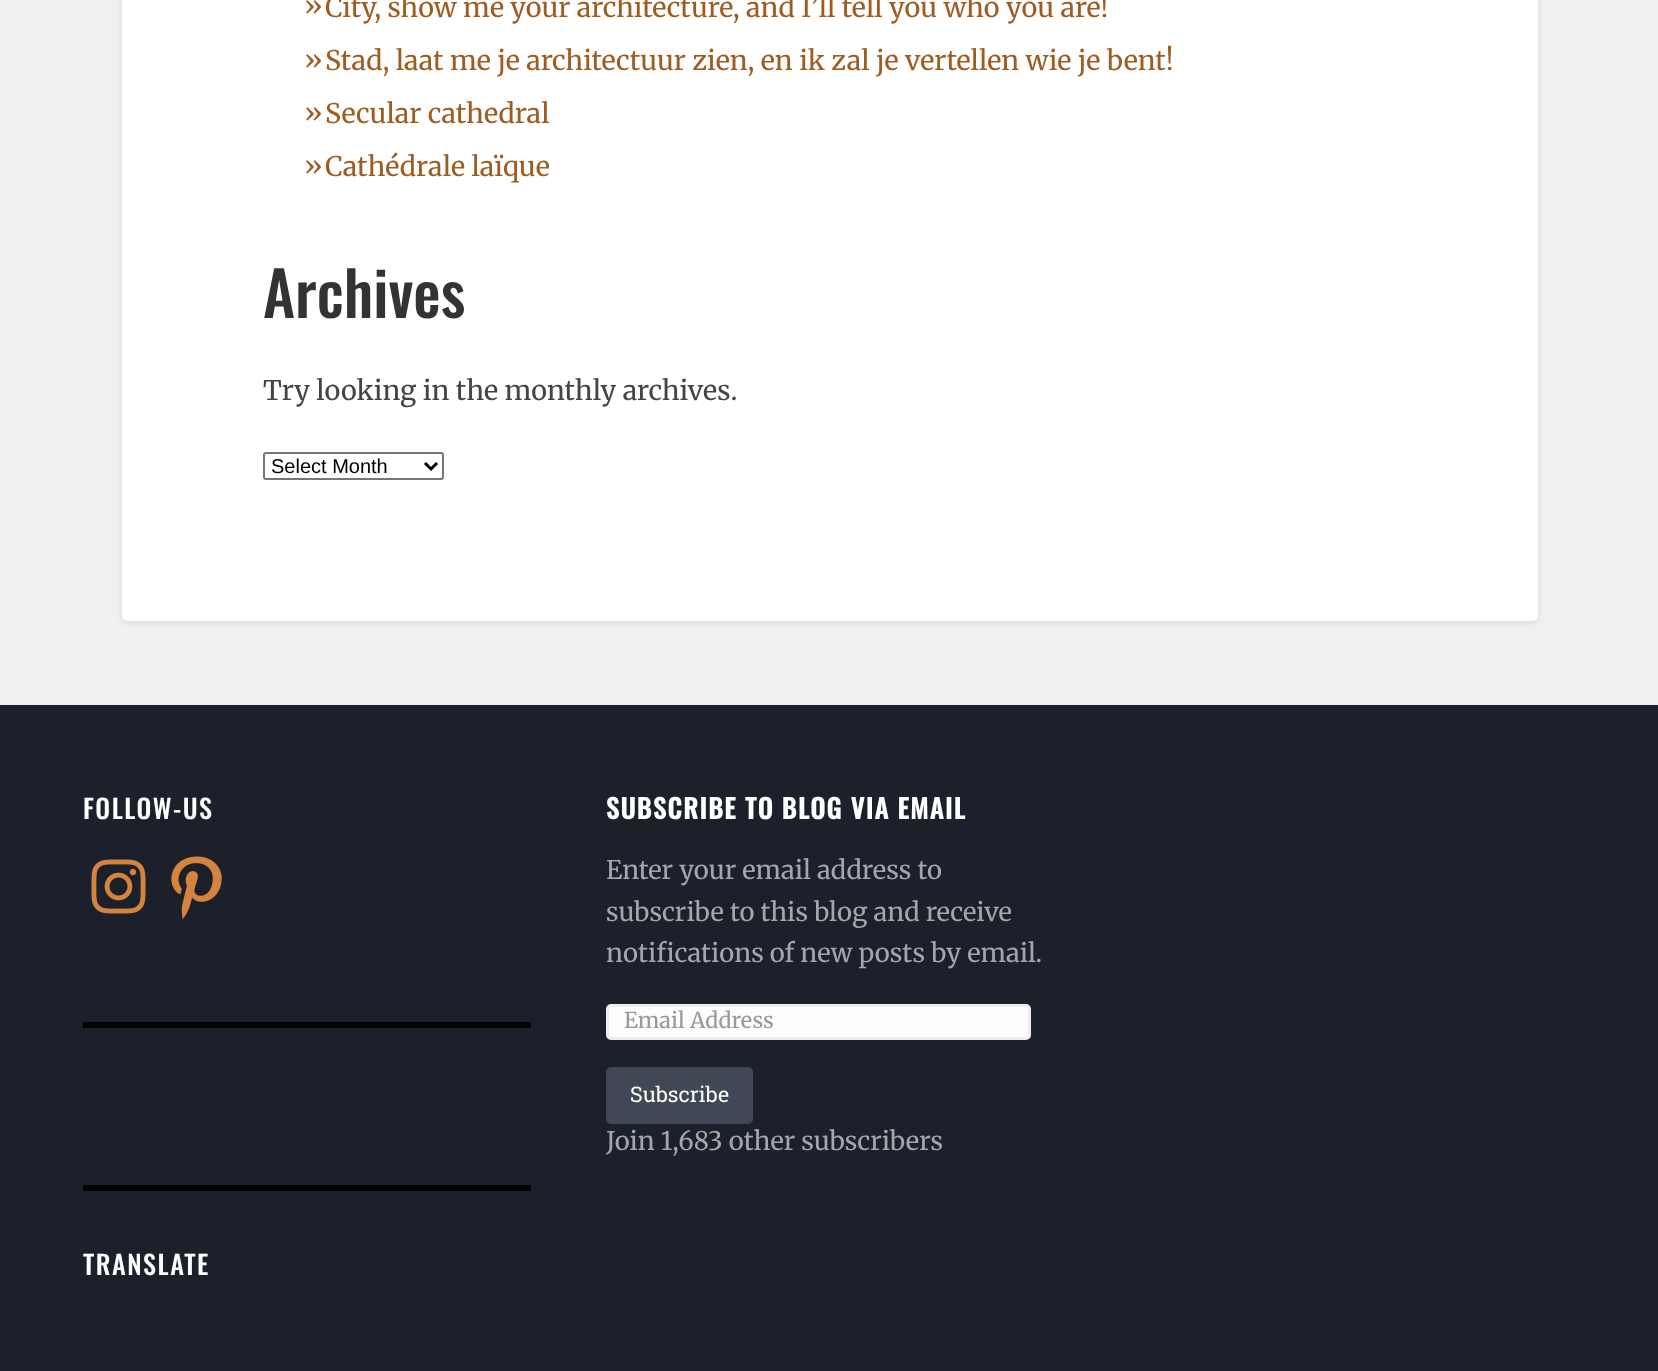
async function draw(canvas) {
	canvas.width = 1658;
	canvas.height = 1371;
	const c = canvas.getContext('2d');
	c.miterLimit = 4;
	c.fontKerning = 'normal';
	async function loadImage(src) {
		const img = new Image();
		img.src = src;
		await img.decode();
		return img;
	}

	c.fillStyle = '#f1f1f1';
	c.fillRect(0, 0, 1658, 1371);
	c.fillStyle = '#0000001a';
	c.filter = 'blur(3px)';
	c.beginPath();
	c.roundRect(122, -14, 1416, 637, 5);
	c.fill();
	c.filter = 'none';
	c.fillStyle = '#fff';
	c.beginPath();
	c.roundRect(122, -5, 1416, 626, 5);
	c.fill();
	c.font = '27px Merriweather';
	c.fillStyle = '#9f5c21';
	for (const [text, x, y] of [
		['»', 304, 15],
		['City, show me your architecture, and I’ll tell you who you are!', 325, 17],
		['»', 304, 69],
		['Stad, laat me je architectuur zien, en ik zal je vertellen wie je bent!', 325, 70],
		['»', 304, 122],
		['Secular cathedral', 325, 123],
		['»', 304, 175],
		['Cathédrale laïque', 325, 176],
	]) {
		c.fillText(text, x, y);
	}
	c.font = '500 61.5px Oswald';
	c.fillStyle = '#333';
	c.fillText('Archives', 263, 318);
	c.font = '27px Merriweather';
	c.fillStyle = '#444';
	c.fillText('Try looking in the monthly archives.', 263, 400);
	c.beginPath();
	c.roundRect(264, 453, 179, 26, 2);
	c.strokeStyle = '#767676';
	c.lineWidth = 2;
	c.stroke();
	c.beginPath();
	c.moveTo(425, 463);
	c.lineTo(431, 469);
	c.lineTo(437, 463);
	c.strokeStyle = '#000';
	c.lineWidth = 3;
	c.stroke();
	c.font = '20px Liberation Sans';
	c.fillStyle = '#000';
	c.fillText('Select Month', 271, 473);
	c.fillStyle = '#1c202b';
	c.fillRect(0, 705, 1658, 666);
	c.letterSpacing = '1.5px';
	c.font = '500 26.3px Oswald';
	c.fillStyle = '#fff';
	c.fillText('FOLLOW-US', 83, 819);
	c.drawImage(await loadImage('img1.png'), 91, 859, 55, 55);
	c.drawImage(await loadImage('img2.png'), 171, 856, 51, 63);
	c.fillStyle = '#020203';
	c.fillRect(83, 1022, 448, 6);
	c.fillRect(83, 1185, 448, 6);
	c.fillStyle = '#fff';
	c.fillText('TRANSLATE', 83, 1275);
	c.font = 'bold 26.3px Oswald';
	c.fillText('SUBSCRIBE TO BLOG VIA EMAIL', 606, 819);
	c.letterSpacing = '0px';
	c.font = '25.6px Merriweather';
	c.fillStyle = '#a4a6aa';
	for (const [text, x, y] of [
		['Enter your email address to', 606, 879],
		['subscribe to this blog and receive', 606, 921],
		['notifications of new posts by email.', 606, 962],
	]) {
		c.fillText(text, x, y);
	}
	c.fillStyle = '#fdfdfd';
	c.beginPath();
	c.roundRect(607.5, 1005.5, 422, 33, 3.5);
	c.fill();
	c.strokeStyle = '#eee';
	c.stroke();
	c.font = '21.75px Merriweather';
	c.fillStyle = '#999';
	c.fillText('Email Address', 624, 1028);
	c.fillStyle = '#3f4854';
	c.beginPath();
	c.roundRect(606, 1067, 147, 57, 5);
	c.fill();
	c.font = '21.5px Roboto Slab';
	c.fillStyle = '#fff';
	c.fillText('Subscribe', 630, 1102);
	c.font = '25.6px Merriweather';
	c.fillStyle = '#a4a6aa';
	c.fillText('Join 1,683 other subscribers', 606, 1150);
}

draw(document.querySelector('canvas'));
